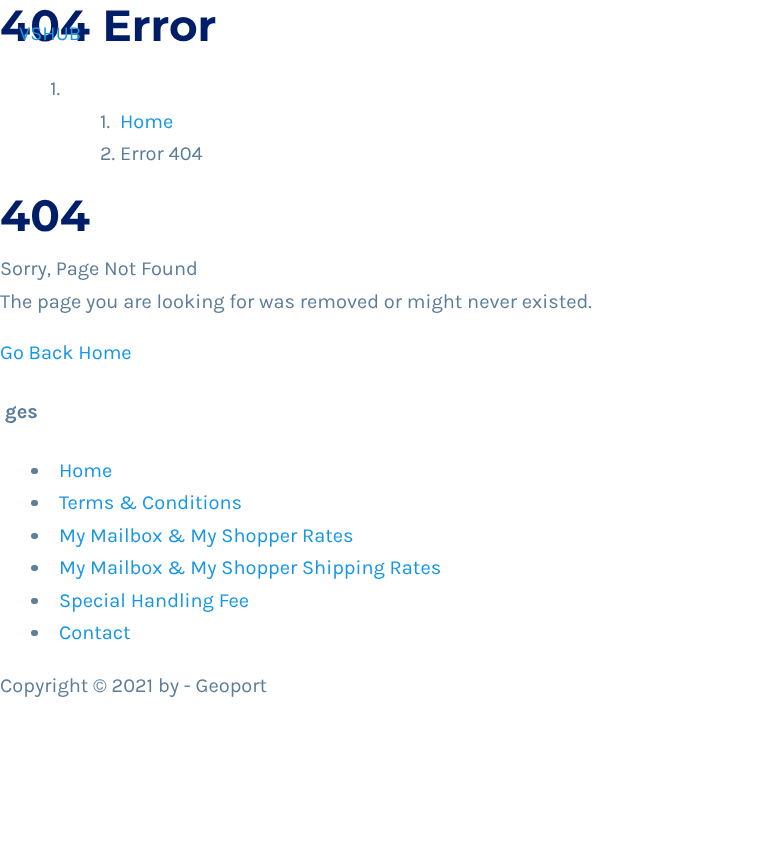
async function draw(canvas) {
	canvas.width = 779;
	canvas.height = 846;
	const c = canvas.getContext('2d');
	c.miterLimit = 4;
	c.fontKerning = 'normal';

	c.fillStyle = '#fff';
	c.fillRect(0, 0, 779, 846);
	c.font = 'bold 43.75px Montserrat';
	c.fillStyle = '#001d67';
	c.fillText('404 Error', 0, 41);
	c.font = '20px Karla';
	c.fillStyle = '#5b7d9a';
	c.fillText('1.', 50, 95);
	c.fillText('1.', 100, 128);
	c.fillStyle = '#1696e7';
	c.fillText('Home', 120, 128);
	c.fillStyle = '#5b7d9a';
	c.fillText('2. Error 404', 100, 160);
	c.font = 'bold 43.75px Montserrat';
	c.fillStyle = '#001d67';
	c.fillText('404', 0, 231);
	c.font = '20px Karla';
	c.fillStyle = '#5b7d9a';
	c.fillText('Sorry, Page Not Found', 0, 275);
	c.fillText('The page you are looking for was removed or might never existed.', 0, 308);
	c.fillStyle = '#1696e7';
	c.fillText('Go Back Home', 0, 359);
	c.fillText('VSHUB', 19, 40);
	c.font = 'bold 20px Karla';
	c.fillStyle = '#5b7d9a';
	c.fillText('ges', 5, 418);
	c.beginPath();
	c.roundRect(31, 468, 7, 6, 3);
	c.fill();
	c.font = '20px Karla';
	c.fillStyle = '#1696e7';
	c.fillText('Home', 59, 477);
	c.fillStyle = '#5b7d9a';
	c.beginPath();
	c.roundRect(31, 500, 7, 6, 3);
	c.fill();
	c.fillStyle = '#1696e7';
	c.fillText('Terms & Conditions', 59, 509);
	c.fillStyle = '#5b7d9a';
	c.beginPath();
	c.roundRect(31, 533, 7, 6, 3);
	c.fill();
	c.fillStyle = '#1696e7';
	c.fillText('My Mailbox & My Shopper Rates', 59, 542);
	c.fillStyle = '#5b7d9a';
	c.beginPath();
	c.roundRect(31, 565, 7, 6, 3);
	c.fill();
	c.fillStyle = '#1696e7';
	c.fillText('My Mailbox & My Shopper Shipping Rates', 59, 574);
	c.fillStyle = '#5b7d9a';
	c.beginPath();
	c.roundRect(31, 598, 7, 6, 3);
	c.fill();
	c.fillStyle = '#1696e7';
	c.fillText('Special Handling Fee', 59, 607);
	c.fillStyle = '#5b7d9a';
	c.beginPath();
	c.roundRect(31, 630, 7, 6, 3);
	c.fill();
	c.fillStyle = '#1696e7';
	c.fillText('Contact', 59, 639);
	c.fillStyle = '#5b7d9a';
	c.fillText('Copyright © 2021 by - Geoport', 0, 692);
}

draw(document.querySelector('canvas'));
